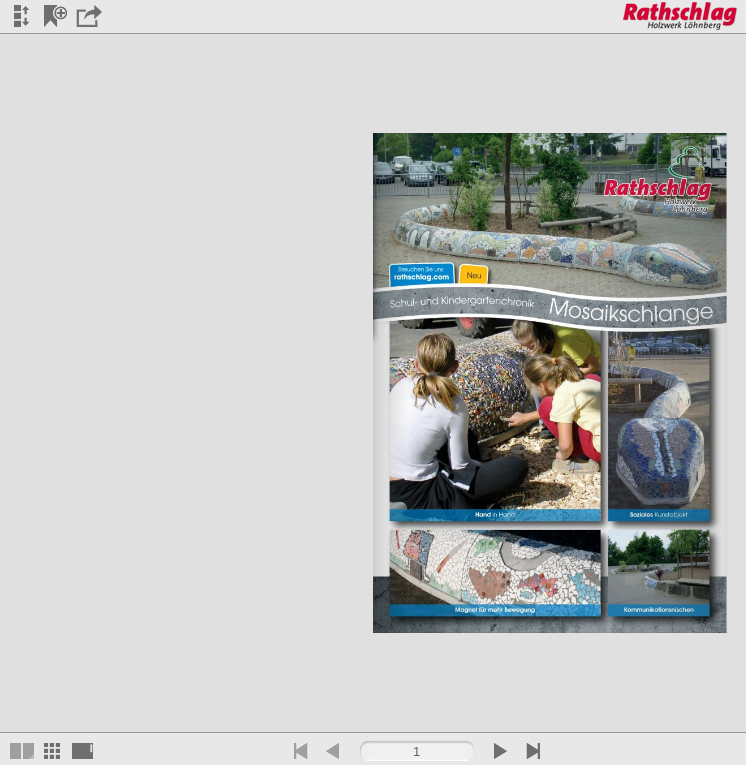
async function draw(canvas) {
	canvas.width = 746;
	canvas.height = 765;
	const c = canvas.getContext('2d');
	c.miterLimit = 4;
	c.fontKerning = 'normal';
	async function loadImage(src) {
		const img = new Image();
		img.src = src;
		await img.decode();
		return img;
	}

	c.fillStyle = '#e8e8e8';
	c.fillRect(0, 0, 746, 765);
	c.fillStyle = '#9f9494';
	c.fillRect(0, 33, 746, 1);
	c.drawImage(await loadImage('img1.png'), 14, 5, 15, 22);
	c.drawImage(await loadImage('img2.png'), 44, 5, 23, 22);
	c.drawImage(await loadImage('img3.png'), 76, 5, 26, 22);
	c.drawImage(await loadImage('img4.png'), 623, 2, 114, 28);
	c.drawImage(await loadImage('img5.png'), 0, 34, 746, 698);
	c.drawImage(await loadImage('img6.png'), 722, 630, 5, 3);
	c.fillRect(0, 732, 746, 1);
	c.drawImage(await loadImage('img7.png'), 10, 743, 24, 16);
	c.drawImage(await loadImage('img8.png'), 44, 743, 16, 16);
	c.drawImage(await loadImage('img9.png'), 72, 743, 21, 16);
	c.drawImage(await loadImage('img10.png'), 294, 743, 14, 16);
	c.drawImage(await loadImage('img11.png'), 326, 743, 13, 16);
	c.drawImage(await loadImage('img12.png'), 360, 741, 9, 20);
	c.drawImage(await loadImage('img13.png'), 369, 741, 96, 20);
	c.drawImage(await loadImage('img14.png'), 465, 741, 9, 20);
	c.font = '13px Liberation Sans';
	c.fillStyle = '#666';
	c.fillText('1', 413, 756);
	c.drawImage(await loadImage('img15.png'), 494, 743, 13, 16);
	c.drawImage(await loadImage('img16.png'), 526, 743, 14, 16);
}

draw(document.querySelector('canvas'));
